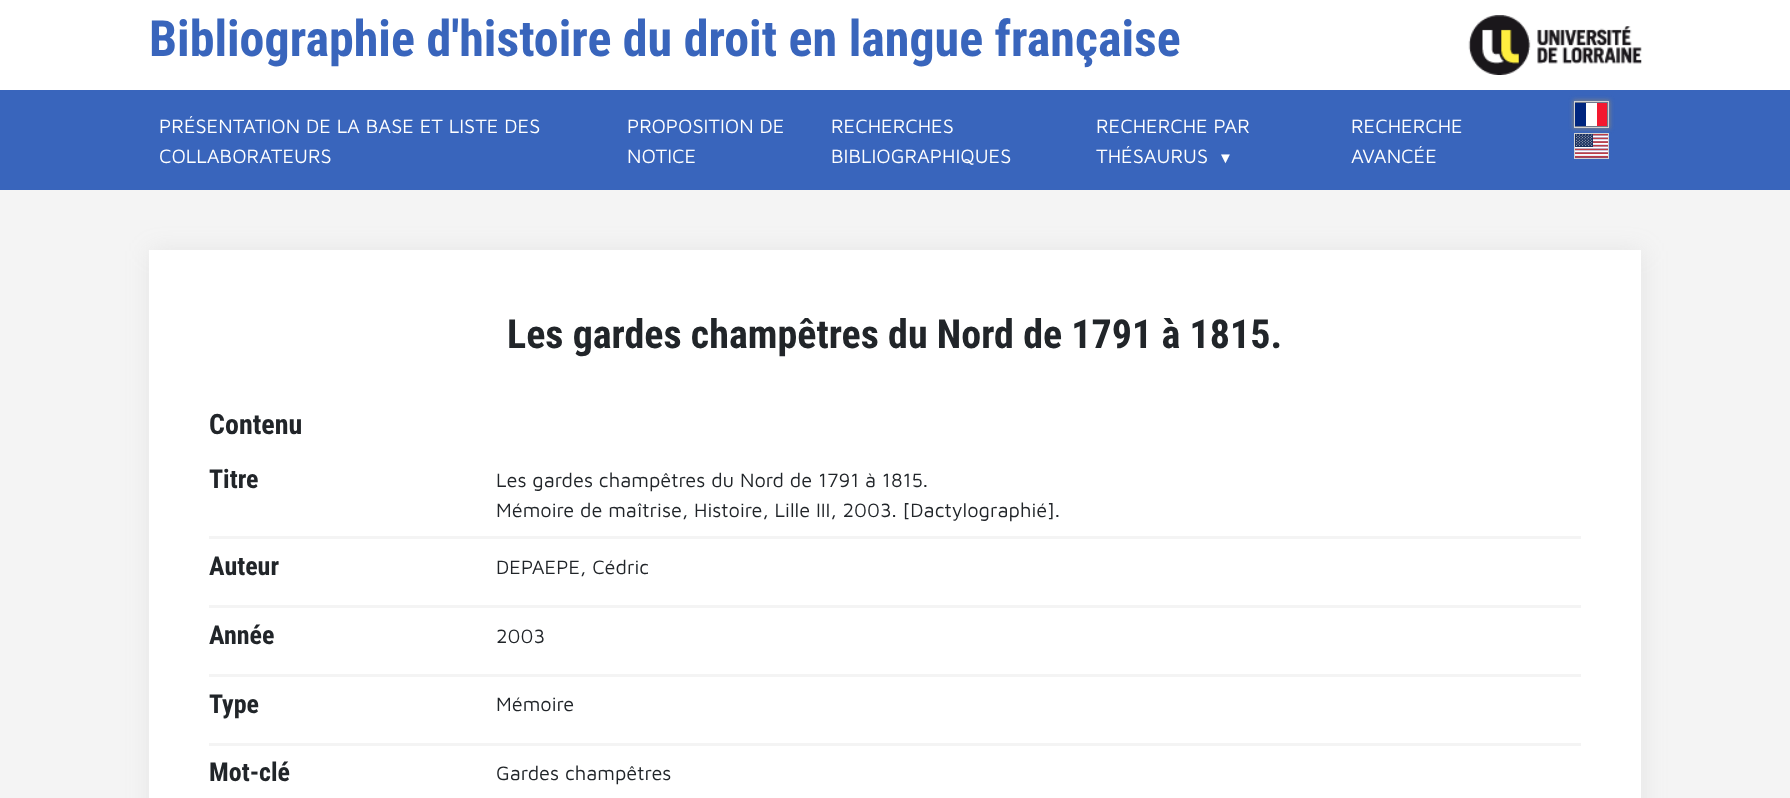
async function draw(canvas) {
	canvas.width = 1790;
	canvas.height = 798;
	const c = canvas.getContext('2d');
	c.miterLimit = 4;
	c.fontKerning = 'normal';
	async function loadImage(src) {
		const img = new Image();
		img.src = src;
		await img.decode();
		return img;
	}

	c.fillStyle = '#f4f4f4';
	c.fillRect(0, 0, 1790, 798);
	c.fillStyle = '#fff';
	c.fillRect(0, 0, 1790, 90);
	c.font = 'bold 50px Roboto Condensed';
	c.fillStyle = '#3965bc';
	c.fillText('Bibliographie d\'histoire du droit en langue française', 149, 56);
	c.drawImage(await loadImage('img1.png'), 1468, 15, 174, 60);
	c.fillRect(0, 90, 1790, 100);
	c.font = '20px Maven Pro';
	c.fillStyle = '#fff';
	for (const [text, x, y] of [
		['PRÉSENTATION DE LA BASE ET LISTE DES', 159, 133],
		['COLLABORATEURS', 159, 163],
		['PROPOSITION DE', 627, 133],
		['NOTICE', 627, 163],
		['RECHERCHES', 831, 133],
		['BIBLIOGRAPHIQUES', 831, 163],
		['RECHERCHE PAR', 1096, 133],
		['THÉSAURUS', 1096, 163],
	]) {
		c.fillText(text, x, y);
	}
	c.font = 'bold 15px Liberation Serif';
	c.fillText('▼', 1218, 163);
	c.font = '20px Maven Pro';
	c.fillText('RECHERCHE', 1351, 133);
	c.fillText('AVANCÉE', 1351, 163);
	c.fillStyle = '#808080e6';
	c.filter = 'blur(2px)';
	c.beginPath();
	c.rect(1573, 100, 37, 29);
	c.fill();
	c.filter = 'none';
	for (const [x, y, w, h, color] of [
		[1586, 103, 11, 23, '#fff'],
		[1575, 103, 11, 23, '#00267f'],
		[1597, 103, 10, 23, '#f31830'],
	]) {
		c.fillStyle = color;
		c.fillRect(x, y, w, h);
	}
	c.strokeStyle = '#d3d3d3';
	c.strokeRect(1574.5, 101.5, 34, 26);
	c.drawImage(await loadImage('img2.png'), 1575, 134, 33, 24);
	c.strokeRect(1574.5, 133.5, 34, 25);
	c.fillStyle = '#a2a2a22b';
	c.filter = 'blur(12.5px)';
	c.beginPath();
	c.rect(150, 251, 1493, 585);
	c.fill();
	c.filter = 'none';
	c.fillStyle = '#fff';
	c.fillRect(149, 250, 1492, 548);
	c.font = 'bold 40px Roboto Condensed';
	c.fillStyle = '#212529';
	c.fillText('Les gardes champêtres du Nord de 1791 à 1815.', 507, 348);
	c.font = 'bold 28px Roboto Condensed';
	c.fillText('Contenu', 209, 434);
	c.fillStyle = '#f4f4f4';
	c.fillRect(209, 536, 1372, 3);
	c.font = 'bold 26px Roboto Condensed';
	c.fillStyle = '#212529';
	c.fillText('Titre', 209, 488);
	c.font = '20px Maven Pro';
	c.fillText('Les gardes champêtres du Nord de 1791 à 1815.', 496, 487);
	c.fillText('Mémoire de maîtrise, Histoire, Lille III, 2003. [Dactylographié].', 496, 517);
	c.fillStyle = '#f4f4f4';
	c.fillRect(209, 605, 1372, 3);
	c.font = 'bold 26px Roboto Condensed';
	c.fillStyle = '#212529';
	c.fillText('Auteur', 209, 575);
	c.font = '20px Maven Pro';
	c.fillText('DEPAEPE, Cédric', 496, 574);
	c.fillStyle = '#f4f4f4';
	c.fillRect(209, 674, 1372, 3);
	c.font = 'bold 26px Roboto Condensed';
	c.fillStyle = '#212529';
	c.fillText('Année', 209, 644);
	c.font = '20px Maven Pro';
	c.fillText('2003', 496, 643);
	c.fillStyle = '#f4f4f4';
	c.fillRect(209, 743, 1372, 3);
	c.font = 'bold 26px Roboto Condensed';
	c.fillStyle = '#212529';
	c.fillText('Type', 209, 713);
	c.font = '20px Maven Pro';
	c.fillText('Mémoire', 496, 711);
	c.font = 'bold 26px Roboto Condensed';
	c.fillText('Mot-clé', 209, 781);
	c.font = '20px Maven Pro';
	c.fillText('Gardes champêtres', 496, 780);
}

draw(document.querySelector('canvas'));
